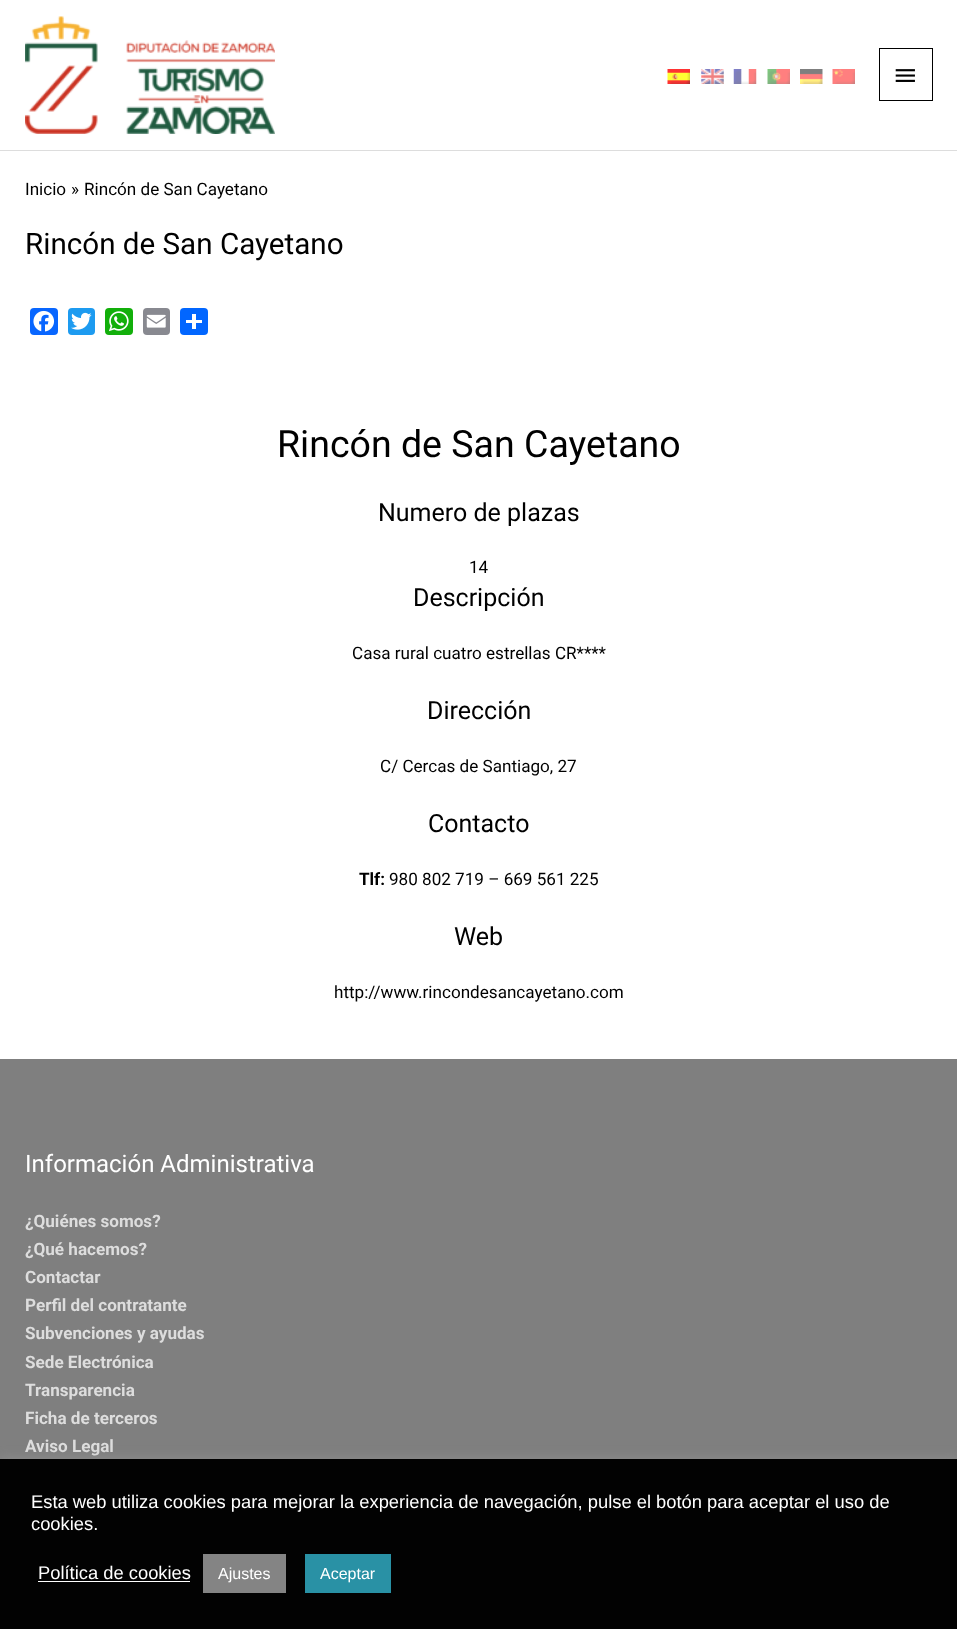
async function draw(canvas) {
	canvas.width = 957;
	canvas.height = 1629;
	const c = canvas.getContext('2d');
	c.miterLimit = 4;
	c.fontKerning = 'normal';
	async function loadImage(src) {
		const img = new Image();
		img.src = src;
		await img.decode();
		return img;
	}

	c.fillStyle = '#fff';
	c.fillRect(0, 0, 957, 1629);
	c.fillStyle = '#ddd';
	c.fillRect(0, 150, 957, 1);
	c.drawImage(await loadImage('img1.png'), 25, 16, 250, 118);
	c.drawImage(await loadImage('img2.png'), 667, 69, 23, 15);
	c.drawImage(await loadImage('img3.png'), 701, 69, 23, 15);
	c.drawImage(await loadImage('img4.png'), 733, 69, 24, 15);
	c.drawImage(await loadImage('img5.png'), 767, 69, 23, 15);
	c.drawImage(await loadImage('img6.png'), 800, 69, 23, 15);
	c.drawImage(await loadImage('img7.png'), 832, 69, 23, 15);
	c.strokeStyle = '#000';
	c.strokeRect(879.5, 48.5, 53, 52);
	c.drawImage(await loadImage('img8.png'), 895, 69, 20, 13);
	c.font = '17.1px Roboto';
	c.fillStyle = '#000';
	for (const [text, x, y] of [
		['Inicio', 25, 195],
		['»', 71, 195],
		['Rincón de San Cayetano', 84, 195],
	]) {
		c.fillText(text, x, y);
	}
	c.font = '29.6px Roboto';
	c.fillText('Rincón de San Cayetano', 25, 254);
	c.fillStyle = '#0866ff';
	c.beginPath();
	c.roundRect(30, 308, 28, 27, 4);
	c.fill();
	c.drawImage(await loadImage('img9.png'), 33, 310, 22, 22);
	c.fillStyle = '#1d9bf0';
	c.beginPath();
	c.roundRect(68, 308, 27, 27, 4);
	c.fill();
	c.drawImage(await loadImage('img10.png'), 71, 312, 21, 18);
	c.fillStyle = '#12af0a';
	c.beginPath();
	c.roundRect(105, 308, 28, 27, 4);
	c.fill();
	c.drawImage(await loadImage('img11.png'), 109, 311, 20, 21);
	c.fillStyle = '#888990';
	c.beginPath();
	c.roundRect(143, 308, 27, 27, 4);
	c.fill();
	c.drawImage(await loadImage('img12.png'), 146, 314, 20, 14);
	c.fillStyle = '#0166ff';
	c.beginPath();
	c.roundRect(180, 308, 28, 27, 4);
	c.fill();
	c.fillStyle = '#fff';
	c.fillRect(192, 314, 4, 15);
	c.fillRect(186, 320, 16, 3);
	c.font = '37.5px Roboto';
	c.fillStyle = '#000';
	c.fillText('Rincón de San Cayetano', 277, 457);
	c.font = '25px Roboto';
	c.fillText('Numero de plazas', 378, 521);
	c.font = '17.1px Roboto';
	c.fillText('14', 469, 573);
	c.font = '25px Roboto';
	c.fillText('Descripción', 413, 606);
	c.font = '17.1px Roboto';
	c.fillText('Casa rural cuatro estrellas CR****', 352, 659);
	c.font = '25px Roboto';
	c.fillText('Dirección', 427, 719);
	c.font = '17.1px Roboto';
	c.fillText('C/ Cercas de Santiago, 27', 380, 772);
	c.font = '25px Roboto';
	c.fillText('Contacto', 428, 832);
	c.font = 'bold 17.1px Roboto';
	c.fillText('Tlf:', 359, 885);
	c.font = '17.1px Roboto';
	c.fillText('980 802 719 – 669 561 225', 389, 885);
	c.font = '25px Roboto';
	c.fillText('Web', 454, 945);
	c.font = '17.1px Roboto';
	c.fillText('http://www.rincondesancayetano.com', 334, 998);
	c.fillStyle = '#7f7f7f';
	c.fillRect(0, 1059, 957, 400);
	c.font = '24px Roboto';
	c.fillStyle = '#fff';
	c.fillText('Información Administrativa', 25, 1172);
	c.font = 'bold 17.1px Roboto';
	c.fillStyle = '#ddd';
	for (const [text, x, y] of [
		['¿Quiénes somos?', 25, 1227],
		['¿Qué hacemos?', 25, 1255],
		['Contactar', 25, 1283],
		['Perfil del contratante', 25, 1311],
		['Subvenciones y ayudas', 25, 1339],
		['Sede Electrónica', 25, 1368],
		['Transparencia', 25, 1396],
		['Ficha de terceros', 25, 1424],
		['Aviso Legal', 25, 1452],
	]) {
		c.fillText(text, x, y);
	}
	c.fillStyle = '#acabab4d';
	c.filter = 'blur(6px)';
	c.beginPath();
	c.rect(0, 1458, 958, 171);
	c.fill();
	c.filter = 'none';
	c.fillStyle = '#020202';
	c.fillRect(0, 1459, 957, 170);
	c.font = '18.35px Liberation Sans';
	c.fillStyle = '#fff';
	for (const [text, x, y] of [
		['Esta web utiliza cookies para mejorar la experiencia de navegación, pulse el botón para aceptar el uso de', 31, 1508],
		['cookies.', 31, 1530],
		['Política de cookies', 38, 1579],
	]) {
		c.fillText(text, x, y);
	}
	c.fillRect(38, 1581, 152, 1);
	c.fillStyle = '#848484';
	c.fillRect(203, 1554, 83, 39);
	c.font = '16px Liberation Sans';
	c.fillStyle = '#fff';
	c.fillText('Ajustes', 218, 1579);
	c.fillStyle = '#2991a5';
	c.fillRect(305, 1554, 86, 39);
	c.fillStyle = '#fff';
	c.fillText('Aceptar', 320, 1579);
}

draw(document.querySelector('canvas'));
